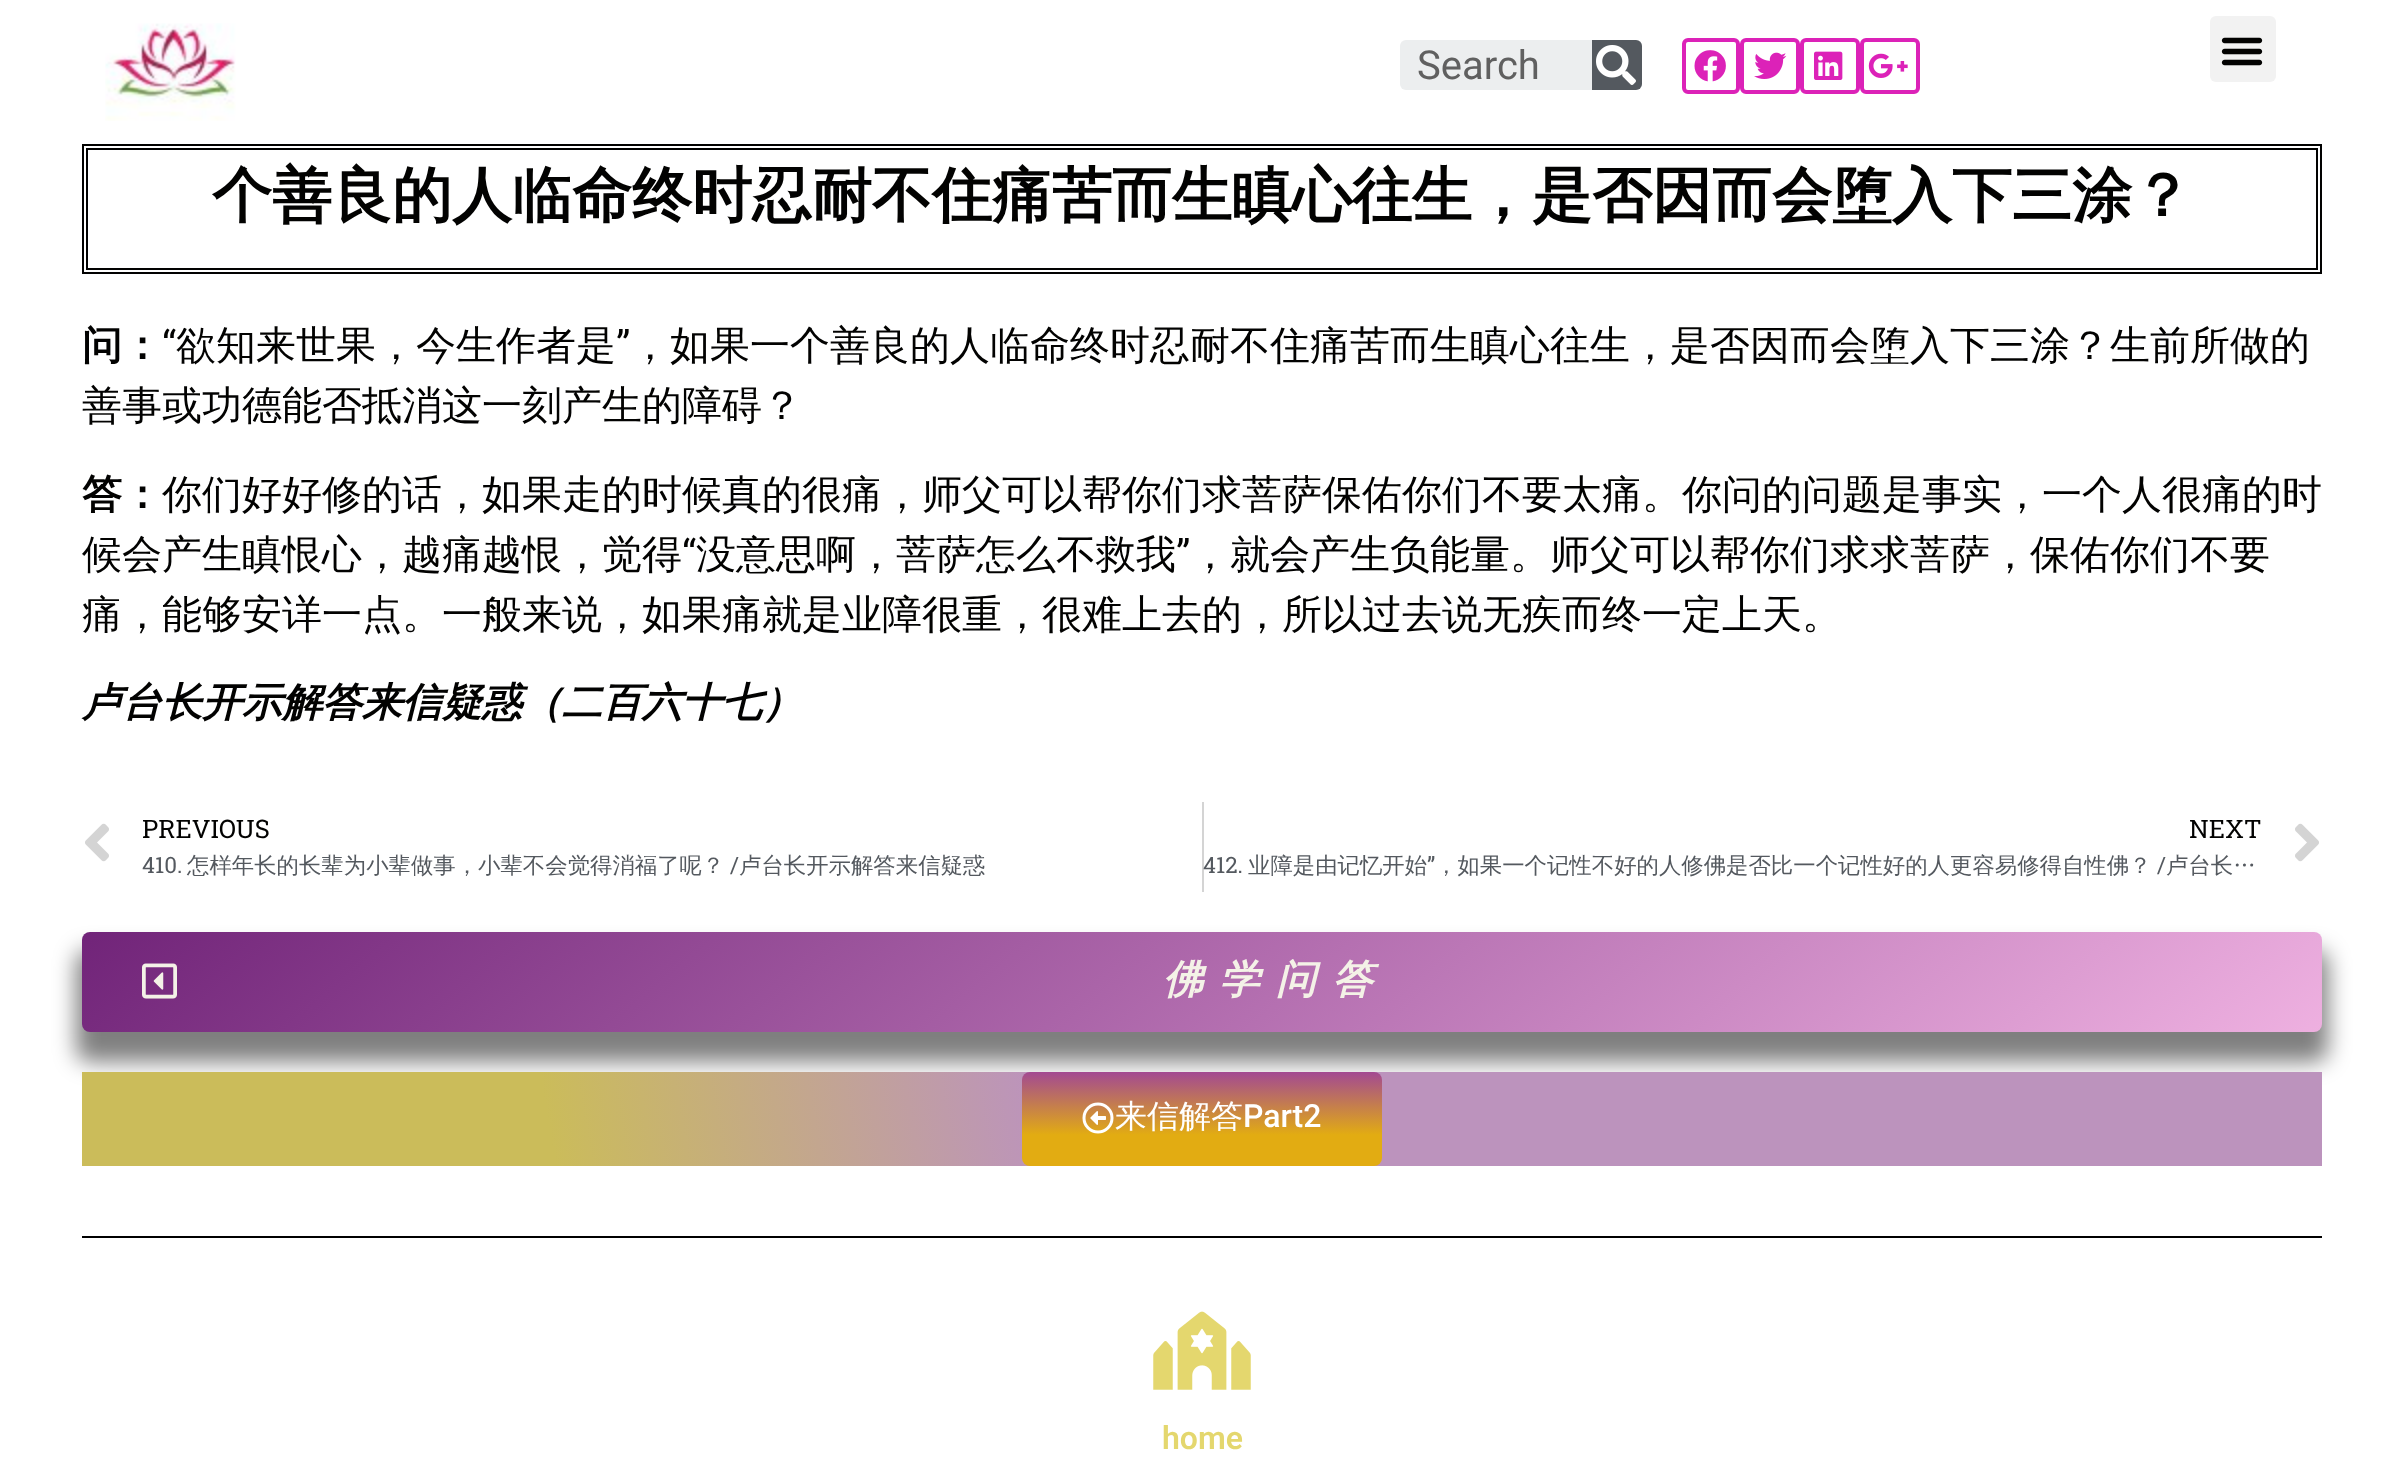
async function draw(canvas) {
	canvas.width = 2403;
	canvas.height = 1461;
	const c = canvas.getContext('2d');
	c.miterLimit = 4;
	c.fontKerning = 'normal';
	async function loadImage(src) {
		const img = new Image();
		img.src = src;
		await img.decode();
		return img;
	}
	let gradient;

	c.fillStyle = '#fff';
	c.fillRect(0, 0, 2403, 1461);
	c.drawImage(await loadImage('img1.png'), 105, 23, 131, 98);
	c.fillStyle = '#eceeef';
	c.beginPath();
	c.roundRect(1400, 40, 242, 50, 6);
	c.fill();
	c.font = '40px Roboto';
	c.fillStyle = '#606060';
	c.fillText('Search', 1417, 79);
	c.fillStyle = '#54595f';
	c.beginPath();
	c.roundRect(1592, 40, 50, 50, [0, 6, 6, 0]);
	c.fill();
	c.drawImage(await loadImage('img2.png'), 1596, 45, 40, 40);
	c.beginPath();
	c.roundRect(1684, 40, 54, 52, 4);
	c.strokeStyle = '#dc22b8';
	c.lineWidth = 4;
	c.stroke();
	c.drawImage(await loadImage('img3.png'), 1694, 50, 32, 32);
	c.beginPath();
	c.roundRect(1742, 40, 56, 52, 4);
	c.stroke();
	c.drawImage(await loadImage('img4.png'), 1754, 52, 33, 27);
	c.beginPath();
	c.roundRect(1802, 40, 56, 52, 4);
	c.stroke();
	c.drawImage(await loadImage('img5.png'), 1814, 51, 29, 29);
	c.beginPath();
	c.roundRect(1862, 40, 56, 52, 4);
	c.stroke();
	c.drawImage(await loadImage('img6.png'), 1868, 53, 40, 25);
	c.fillStyle = '#f2f2f2';
	c.beginPath();
	c.roundRect(2210, 16, 66, 66, 6);
	c.fill();
	c.drawImage(await loadImage('img7.png'), 2221, 37, 42, 29);
	c.strokeStyle = '#020201';
	c.lineWidth = 2;
	c.strokeRect(83, 145, 2238, 128);
	c.strokeRect(87, 149, 2230, 120);
	c.font = 'bold 60px WenQuanYi Zen Hei';
	c.fillStyle = '#020201';
	c.fillText('个善良的人临命终时忍耐不住痛苦而生瞋心往生，是否因而会堕入下三涂？', 212, 216);
	c.font = 'bold 40px WenQuanYi Zen Hei';
	c.fillText('问：', 82, 359);
	c.font = '40px Roboto';
	c.fillText('“', 162, 359);
	c.font = '500 40px WenQuanYi Zen Hei';
	c.fillText('欲知来世果，今生作者是', 176, 359);
	c.font = '40px Roboto';
	c.fillText('”', 616, 359);
	c.font = '500 40px WenQuanYi Zen Hei';
	c.fillText('，如果一个善良的人临命终时忍耐不住痛苦而生瞋心往生，是否因而会堕入下三涂？生前所做的', 630, 359);
	c.fillText('善事或功德能否抵消这一刻产生的障碍？', 82, 419);
	c.font = 'bold 40px WenQuanYi Zen Hei';
	c.fillText('答：', 82, 508);
	c.font = '500 40px WenQuanYi Zen Hei';
	c.fillText('你们好好修的话，如果走的时候真的很痛，师父可以帮你们求菩萨保佑你们不要太痛。你问的问题是事实，一个人很痛的时', 162, 508);
	c.fillText('候会产生瞋恨心，越痛越恨，觉得', 82, 568);
	c.font = '40px Roboto';
	c.fillText('“', 682, 568);
	c.font = '500 40px WenQuanYi Zen Hei';
	c.fillText('没意思啊，菩萨怎么不救我', 696, 568);
	c.font = '40px Roboto';
	c.fillText('”', 1176, 568);
	c.font = '500 40px WenQuanYi Zen Hei';
	c.fillText('，就会产生负能量。师父可以帮你们求求菩萨，保佑你们不要', 1190, 568);
	c.fillText('痛，能够安详一点。一般来说，如果痛就是业障很重，很难上去的，所以过去说无疾而终一定上天。', 82, 628);
	c.font = 'italic bold 40px WenQuanYi Zen Hei';
	c.fillText('卢台长开示解答来信疑惑（二百六十七）', 82, 716);
	c.drawImage(await loadImage('img8.png'), 85, 823, 24, 39);
	c.font = '25.5px Roboto Slab';
	c.fillText('PREVIOUS', 142, 838);
	c.font = '22.4px Roboto Slab';
	c.fillStyle = '#54595f';
	c.fillText('410.', 142, 873);
	c.font = '500 22.4px WenQuanYi Zen Hei';
	c.fillText('怎样年长的长辈为小辈做事，小辈不会觉得消福了呢？', 187, 873);
	c.font = '22.4px Roboto Slab';
	c.fillText('/', 730, 873);
	c.font = '500 22.4px WenQuanYi Zen Hei';
	c.fillText('卢台长开示解答来信疑惑', 739, 873);
	c.fillStyle = '#d4d4d4';
	c.fillRect(1202, 802, 2, 90);
	c.font = '25.5px Roboto Slab';
	c.fillStyle = '#020201';
	c.fillText('NEXT', 2189, 838);
	c.font = '22.4px Roboto Slab';
	c.fillStyle = '#54595f';
	c.fillText('412.', 1203, 873);
	c.font = '500 22.4px WenQuanYi Zen Hei';
	c.fillText('业障是由记忆开始', 1248, 873);
	c.font = '22.4px Roboto Slab';
	c.fillText('”', 1427, 873);
	c.font = '500 22.4px WenQuanYi Zen Hei';
	c.fillText('，如果一个记性不好的人修佛是否比一个记性好的人更容易修得自性佛？', 1435, 873);
	c.font = '22.4px Roboto Slab';
	c.fillText('/', 2157, 873);
	c.font = '500 22.4px WenQuanYi Zen Hei';
	c.fillText('卢台长…', 2166, 873);
	c.drawImage(await loadImage('img9.png'), 2295, 823, 24, 39);
	c.fillStyle = '#00000080';
	c.filter = 'blur(11px)';
	c.beginPath();
	c.roundRect(76, 950, 2252, 112, 14);
	c.fill();
	c.filter = 'none';
	gradient = c.createLinearGradient(715, 401, 1689, 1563);
	gradient.addColorStop(0, '#712479');
	gradient.addColorStop(1, '#eeb0e0');
	c.fillStyle = gradient;
	c.beginPath();
	c.roundRect(82, 932, 2240, 100, 8);
	c.fill();
	c.drawImage(await loadImage('img10.png'), 142, 963, 35, 36);
	c.letterSpacing = '16.5px';
	c.font = 'italic bold 40px WenQuanYi Zen Hei';
	c.fillStyle = '#f4f2e7';
	c.fillText('佛学问答', 1163, 993);
	gradient = c.createLinearGradient(108, 1312, 2296, 926);
	gradient.addColorStop(0.21, '#cbbc5a');
	gradient.addColorStop(0.43, '#bc93bd');
	c.fillStyle = gradient;
	c.fillRect(82, 1072, 2240, 94);
	gradient = c.createLinearGradient(1202, 1072, 1202, 1166);
	gradient.addColorStop(0, '#a34992');
	gradient.addColorStop(0.67, '#e2ac12');
	c.fillStyle = gradient;
	c.beginPath();
	c.roundRect(1022, 1072, 360, 94, 8);
	c.fill();
	c.drawImage(await loadImage('img11.png'), 1082, 1102, 32, 32);
	c.letterSpacing = '0px';
	c.font = '500 32px WenQuanYi Zen Hei';
	c.fillStyle = '#fff';
	c.fillText('来信解答', 1115, 1127);
	c.font = '500 32px Roboto';
	c.fillText('Part2', 1243, 1127);
	c.fillStyle = '#000';
	c.fillRect(82, 1236, 2240, 2);
	c.drawImage(await loadImage('img12.png'), 1153, 1311, 98, 79);
	c.font = '600 32px Roboto';
	c.fillStyle = '#e4d76e';
	c.fillText('home', 1162, 1449);
}

draw(document.querySelector('canvas'));
